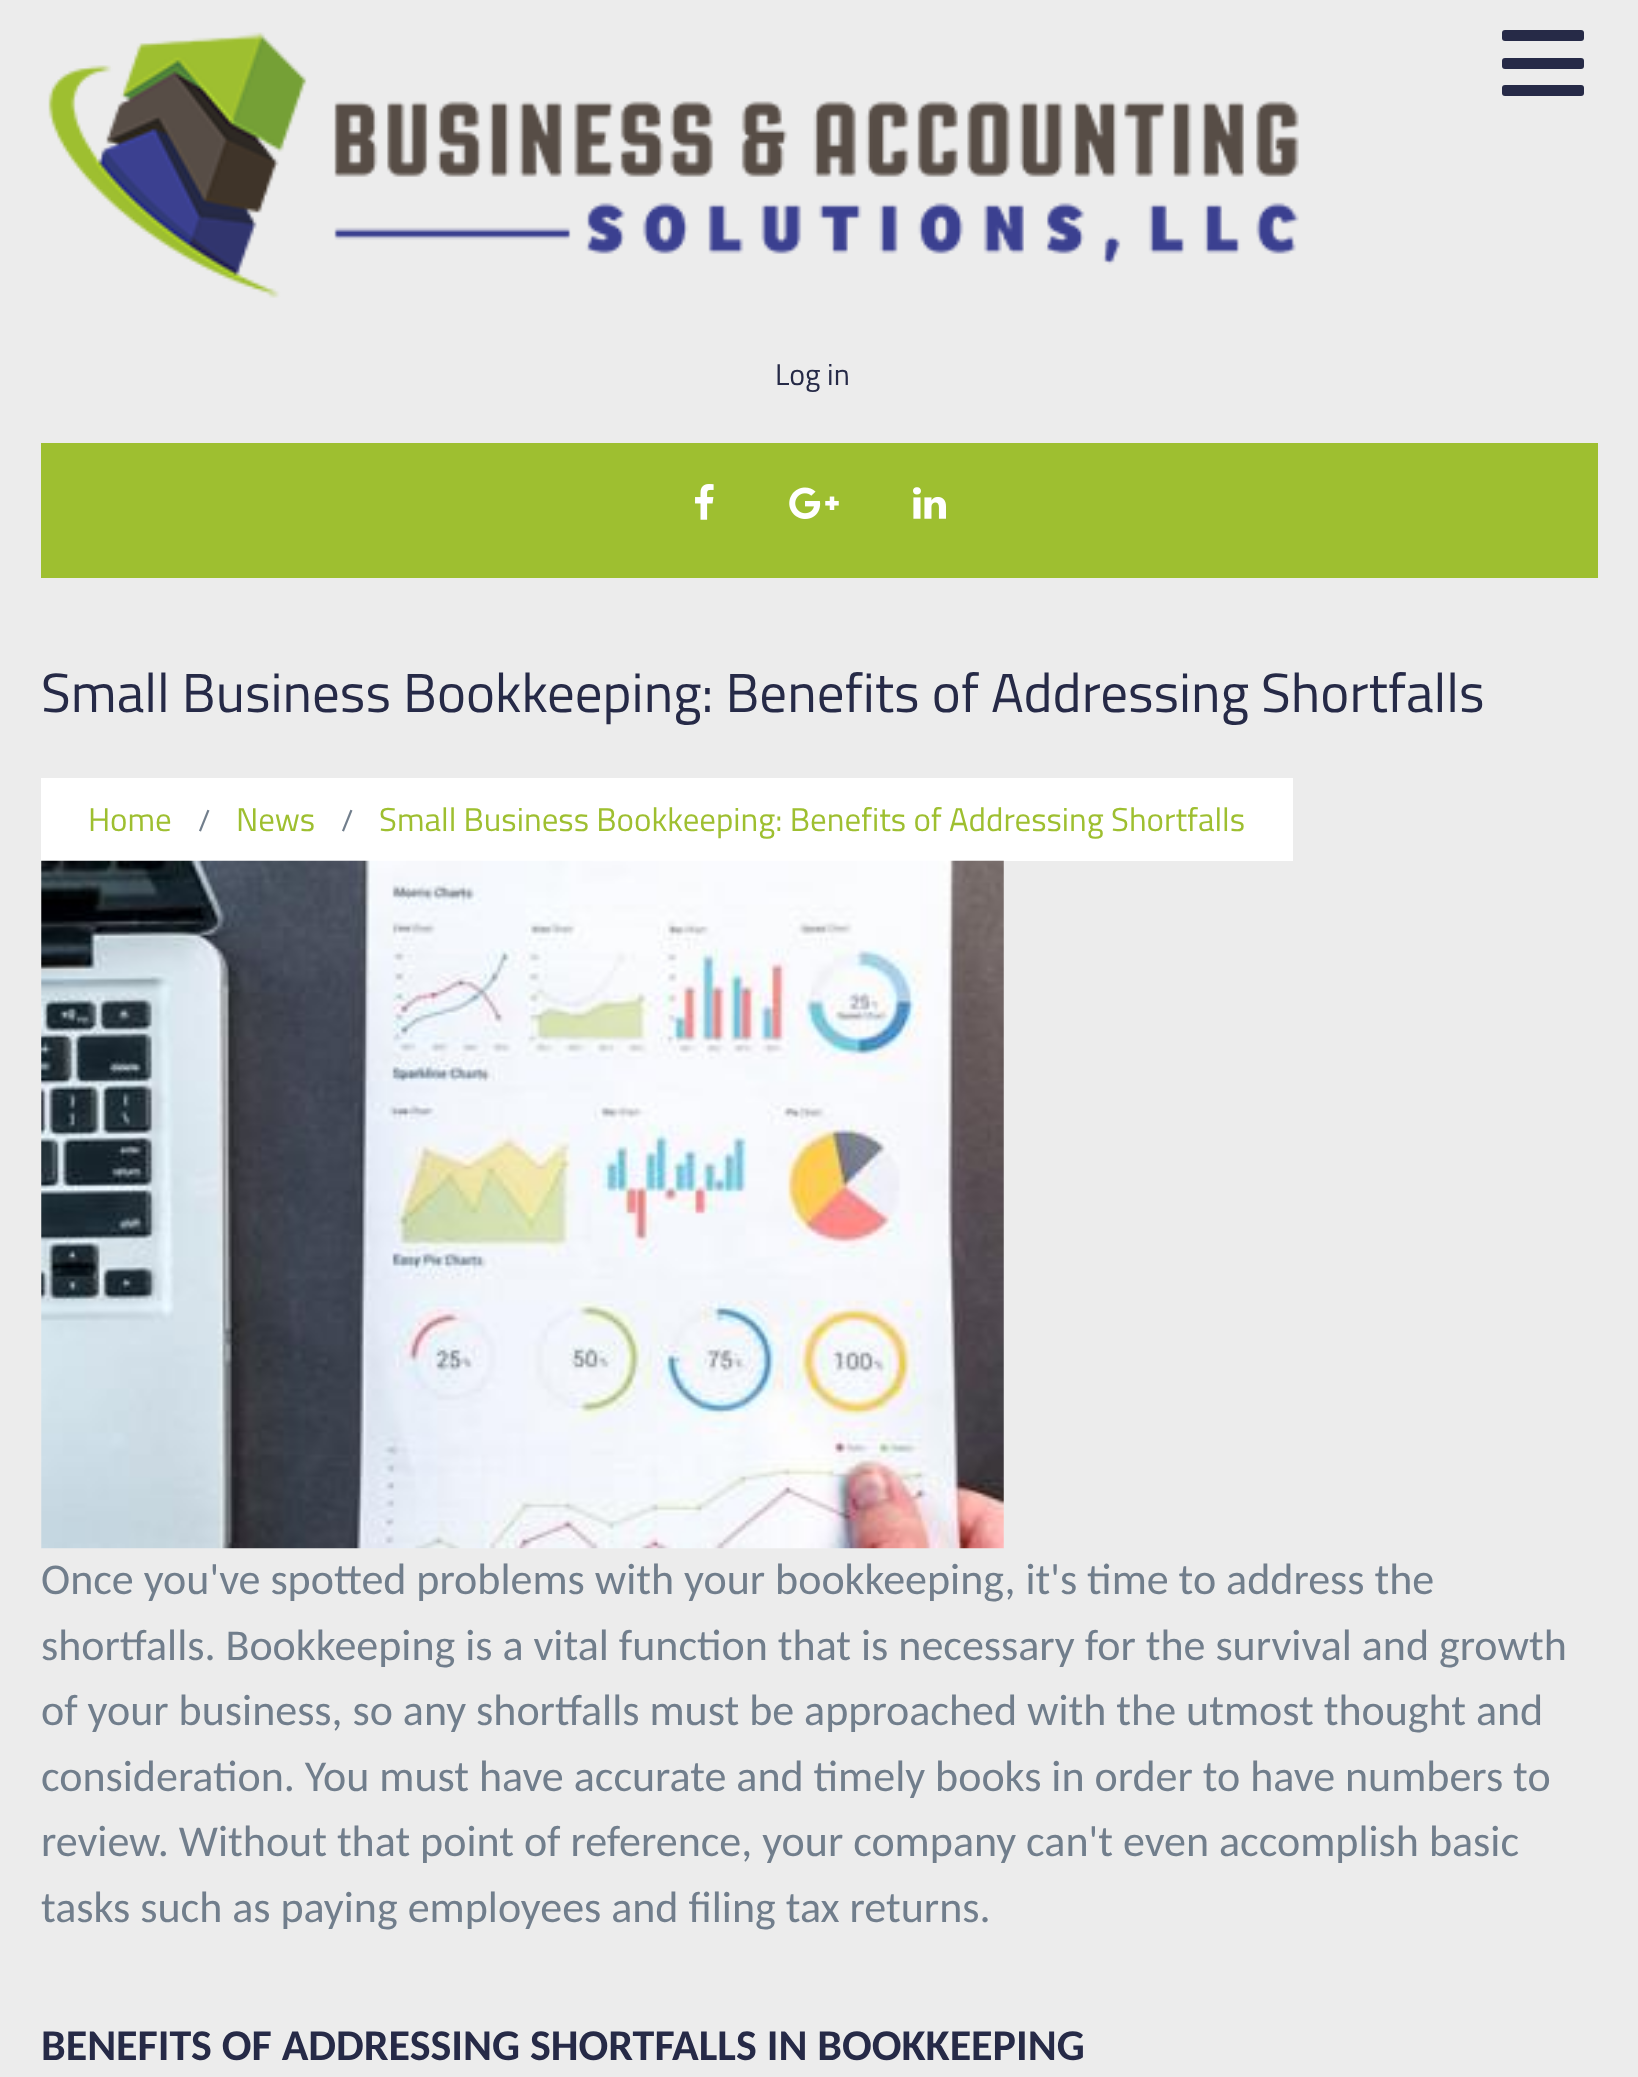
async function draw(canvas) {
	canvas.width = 1638;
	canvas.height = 2077;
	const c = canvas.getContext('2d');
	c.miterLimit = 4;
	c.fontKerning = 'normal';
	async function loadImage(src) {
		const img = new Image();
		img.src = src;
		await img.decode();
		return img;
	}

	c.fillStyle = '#ececec';
	c.fillRect(0, 0, 1638, 2077);
	c.drawImage(await loadImage('img1.png'), 48, 32, 1251, 266);
	c.fillStyle = '#262a47';
	c.beginPath();
	c.roundRect(1502, 58, 82, 11, 3);
	c.fill();
	c.beginPath();
	c.roundRect(1502, 30, 82, 11, 3);
	c.fill();
	c.beginPath();
	c.roundRect(1502, 85, 82, 11, 3);
	c.fill();
	c.font = '30px Titillium Web';
	c.fillText('Log in', 775, 385);
	c.fillStyle = '#9ebf30';
	c.fillRect(41, 443, 1557, 135);
	c.drawImage(await loadImage('img2.png'), 695, 484, 19, 36);
	c.drawImage(await loadImage('img3.png'), 789, 487, 50, 32);
	c.drawImage(await loadImage('img4.png'), 913, 487, 33, 32);
	c.font = '55px Titillium Web';
	c.fillStyle = '#262a47';
	c.fillText('Small Business Bookkeeping: Benefits of Addressing Shortfalls', 41, 712);
	c.fillStyle = '#fff';
	c.fillRect(41, 778, 1252, 83);
	c.font = '33px Titillium Web';
	c.fillStyle = '#9ebf30';
	c.fillText('Home', 88, 831);
	c.font = '30px Titillium Web';
	c.fillStyle = '#717e8c';
	c.fillText('/', 198, 831);
	c.font = '33px Titillium Web';
	c.fillStyle = '#9ebf30';
	c.fillText('News', 236, 831);
	c.font = '30px Titillium Web';
	c.fillStyle = '#717e8c';
	c.fillText('/', 341, 831);
	c.font = '33px Titillium Web';
	c.fillStyle = '#9ebf30';
	c.fillText('Small Business Bookkeeping: Benefits of Addressing Shortfalls', 379, 831);
	c.drawImage(await loadImage('img5.png'), 41, 860, 963, 689);
	c.font = '44px Carlito';
	c.fillStyle = '#717e8c';
	for (const [text, x, y] of [
		['Once you\'ve spotted problems with your bookkeeping, it\'s time to address the', 41, 1594],
		['shortfalls. Bookkeeping is a vital function that is necessary for the survival and growth', 41, 1660],
		['of your business, so any shortfalls must be approached with the utmost thought and', 41, 1725],
		['consideration. You must have accurate and timely books in order to have numbers to', 41, 1791],
		['review. Without that point of reference, your company can\'t even accomplish basic', 41, 1856],
		['tasks such as paying employees and filing tax returns.', 41, 1922],
	]) {
		c.fillText(text, x, y);
	}
	c.font = 'bold 44px Carlito';
	c.fillStyle = '#262a47';
	c.fillText('BENEFITS OF ADDRESSING SHORTFALLS IN BOOKKEEPING', 41, 2060);
}

draw(document.querySelector('canvas'));
